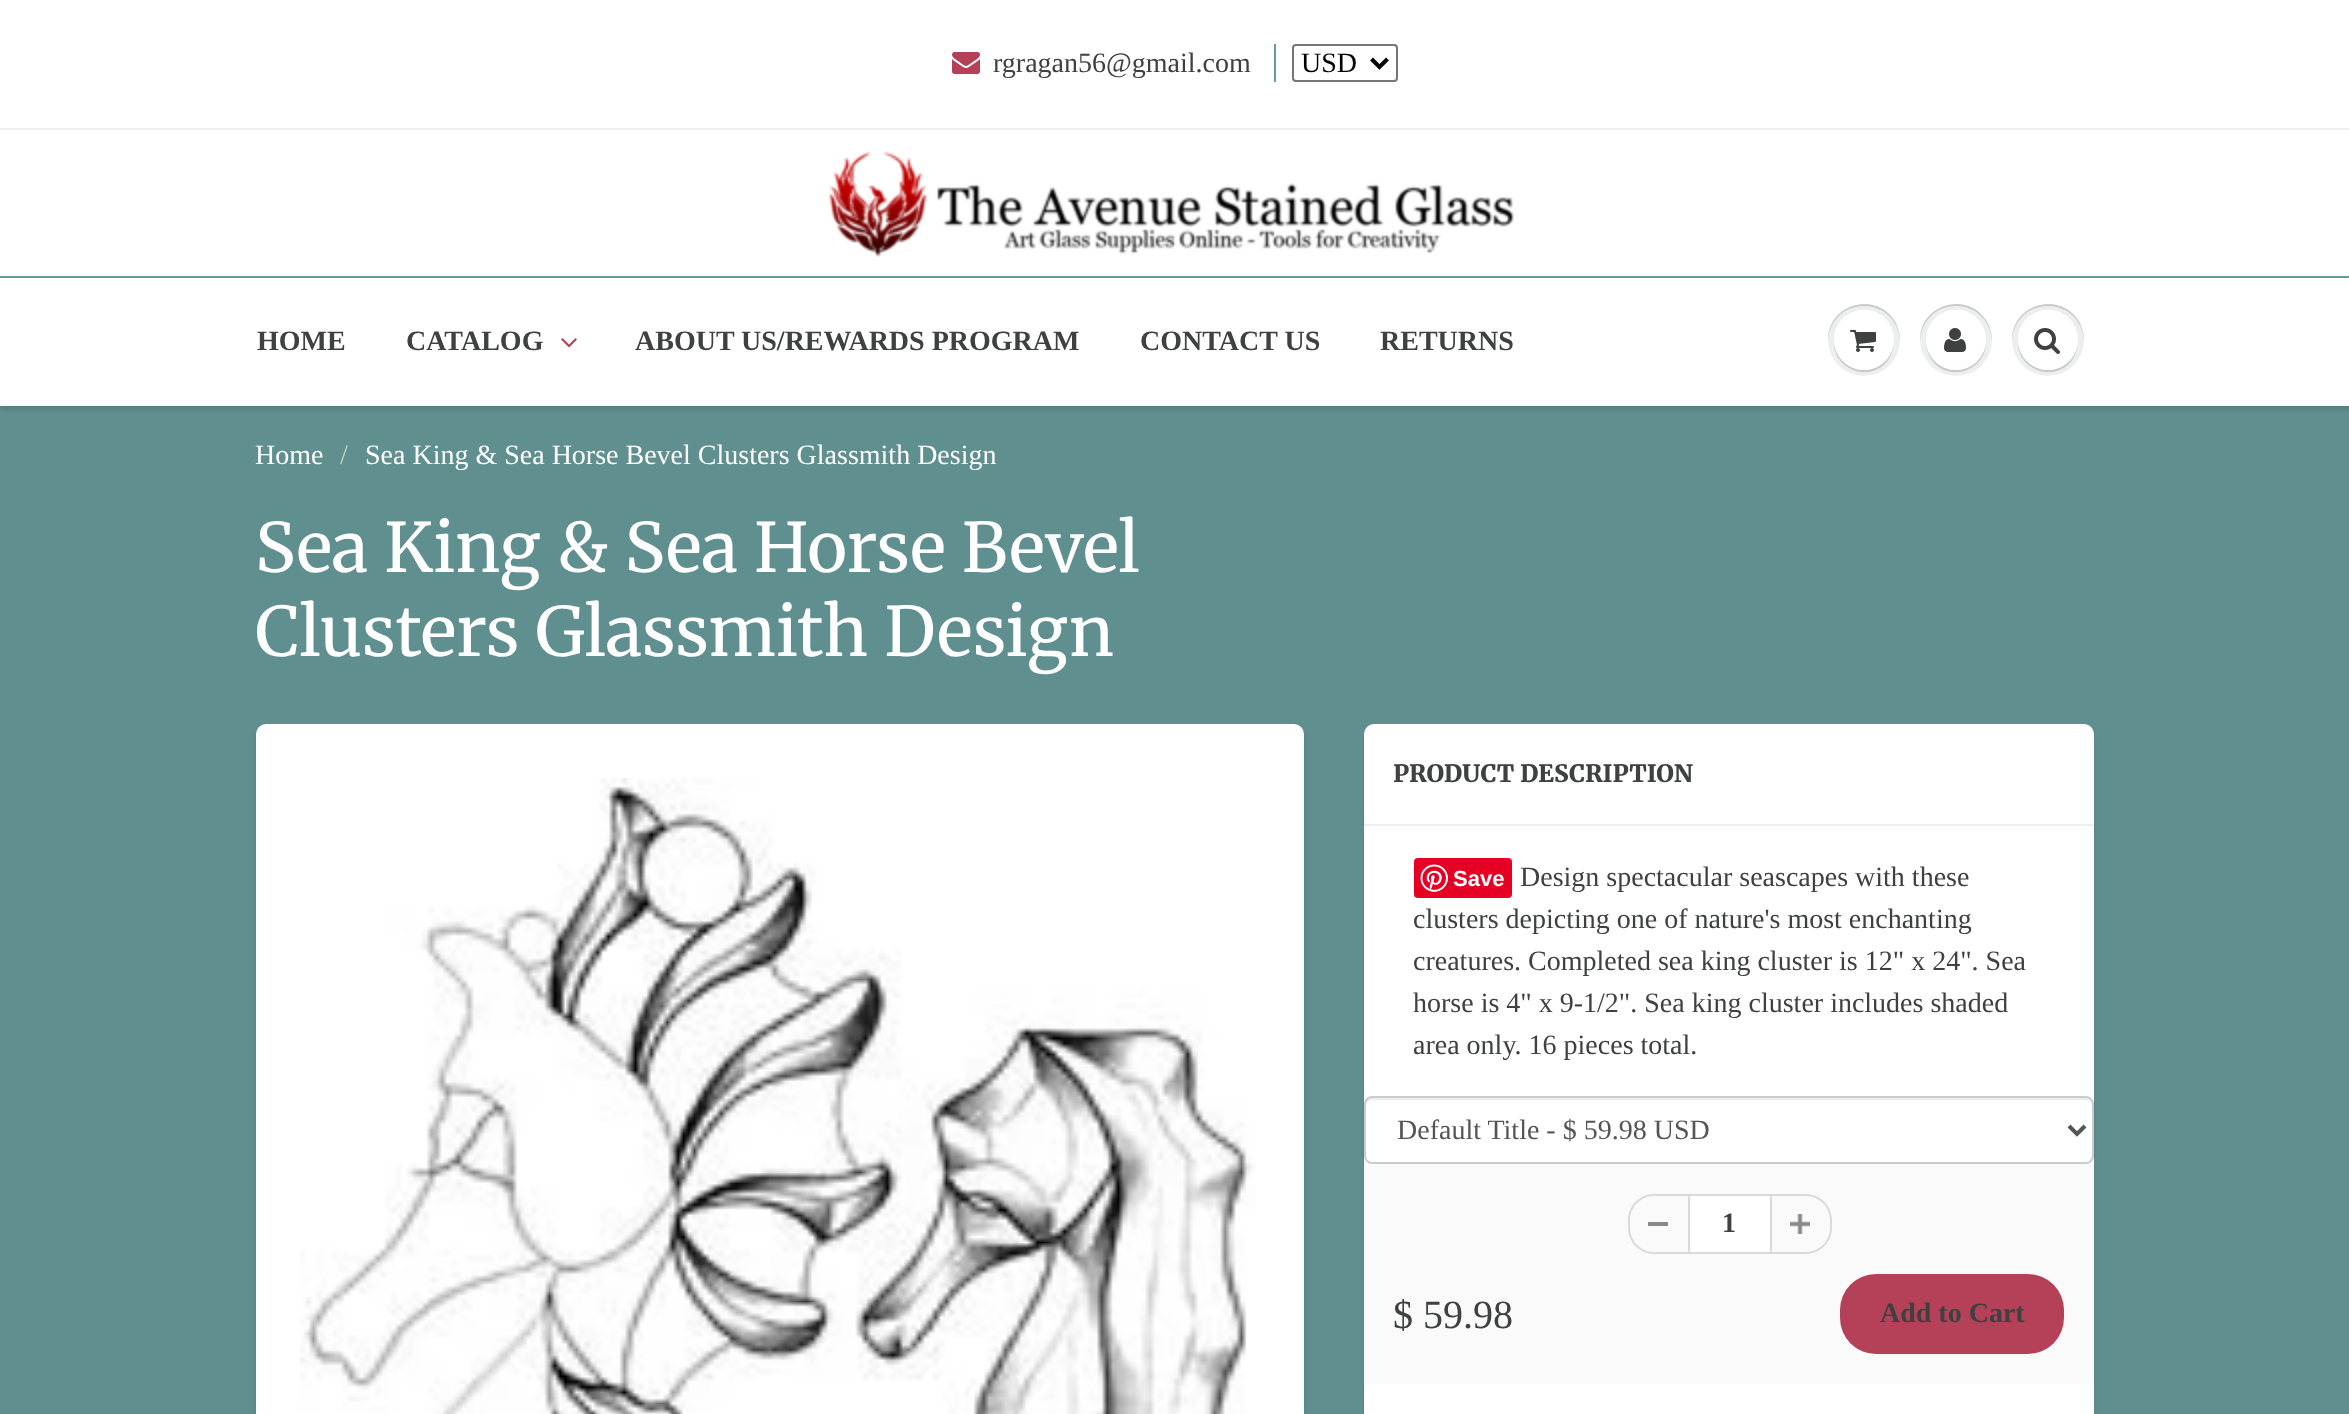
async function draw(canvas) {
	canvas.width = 2349;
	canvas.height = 1414;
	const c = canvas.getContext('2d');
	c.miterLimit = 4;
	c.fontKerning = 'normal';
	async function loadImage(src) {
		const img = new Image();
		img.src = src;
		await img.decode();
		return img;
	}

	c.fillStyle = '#fff';
	c.fillRect(0, 0, 2349, 1414);
	c.drawImage(await loadImage('img1.png'), 952, 52, 28, 22);
	c.font = '28px Liberation Serif';
	c.fillStyle = '#3f4040';
	c.fillText('rgragan56@gmail.com', 993, 72);
	c.fillStyle = '#609e9e';
	c.fillRect(1274, 44, 2, 38);
	c.beginPath();
	c.roundRect(1293, 45, 104, 36, 3);
	c.strokeStyle = '#767676';
	c.lineWidth = 2;
	c.stroke();
	c.beginPath();
	c.moveTo(1371.5, 59);
	c.lineTo(1379.5, 67);
	c.lineTo(1387.5, 59);
	c.strokeStyle = '#000';
	c.lineWidth = 4;
	c.stroke();
	c.fillStyle = '#000';
	c.fillText('USD', 1301, 72);
	c.fillStyle = '#ecefef';
	c.fillRect(0, 128, 2349, 2);
	c.drawImage(await loadImage('img2.png'), 828, 151, 687, 106);
	c.fillStyle = '#edefef';
	c.beginPath();
	c.arc(1864, 340, 36, 0, 2 * Math.PI);
	c.fill();
	c.fillStyle = '#c9cbcb';
	c.beginPath();
	c.moveTo(1864, 306);
	c.bezierCurveTo(1884, 306, 1899, 321, 1900, 341);
	c.bezierCurveTo(1900, 334, 1898, 326, 1894, 320);
	c.bezierCurveTo(1874, 290, 1827, 305, 1828, 341);
	c.bezierCurveTo(1829, 321, 1844, 306, 1864, 306);
	c.closePath();
	c.fill();
	c.fillStyle = '#edefef';
	c.beginPath();
	c.arc(1956, 340, 36, 0, 2 * Math.PI);
	c.fill();
	c.fillStyle = '#c9cbcb';
	c.beginPath();
	c.moveTo(1956, 306);
	c.bezierCurveTo(1976, 306, 1991, 321, 1992, 341);
	c.bezierCurveTo(1992, 334, 1990, 326, 1986, 320);
	c.bezierCurveTo(1966, 290, 1919, 305, 1920, 341);
	c.bezierCurveTo(1921, 321, 1936, 306, 1956, 306);
	c.closePath();
	c.fill();
	c.fillStyle = '#edefef';
	c.beginPath();
	c.arc(2048, 340, 36, 0, 2 * Math.PI);
	c.fill();
	c.fillStyle = '#c9cbcb';
	c.beginPath();
	c.moveTo(2048, 306);
	c.bezierCurveTo(2068, 306, 2083, 321, 2084, 341);
	c.bezierCurveTo(2084, 334, 2082, 326, 2078, 320);
	c.bezierCurveTo(2058, 290, 2011, 305, 2012, 341);
	c.bezierCurveTo(2013, 321, 2028, 306, 2048, 306);
	c.closePath();
	c.fill();
	c.fillStyle = '#608f8f';
	c.fillRect(0, 406, 2349, 1008);
	c.save();
	c.beginPath();
	c.rect(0, 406, 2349, 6);
	c.clip();
	c.fillStyle = '#0b191c1f';
	c.filter = 'blur(2px)';
	c.beginPath();
	c.rect(0, 280, 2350, 130);
	c.fill();
	c.filter = 'none';
	c.restore();
	c.fillStyle = '#609e9e';
	c.fillRect(0, 276, 2349, 2);
	c.font = 'bold 28px Liberation Serif';
	c.fillStyle = '#3f4040';
	c.fillText('HOME', 257, 350);
	c.fillText('CATALOG', 406, 350);
	c.drawImage(await loadImage('img3.png'), 561, 338, 16, 10);
	for (const [text, x, y] of [
		['ABOUT US/REWARDS PROGRAM', 635, 350],
		['CONTACT US', 1140, 350],
		['RETURNS', 1380, 350],
	]) {
		c.fillText(text, x, y);
	}
	c.fillStyle = '#c9cbcb';
	c.beginPath();
	c.moveTo(1894, 341);
	c.bezierCurveTo(1893, 357, 1880, 370, 1864, 370);
	c.bezierCurveTo(1848, 370, 1835, 357, 1834, 341);
	c.bezierCurveTo(1833, 371, 1872, 384, 1889, 359);
	c.bezierCurveTo(1892, 354, 1894, 347, 1894, 341);
	c.closePath();
	c.fill();
	c.fillStyle = '#fff';
	c.beginPath();
	c.arc(1864, 340, 30, 0, 2 * Math.PI);
	c.fill();
	c.beginPath();
	c.moveTo(1864, 312);
	c.bezierCurveTo(1881, 312, 1893, 324, 1894, 341);
	c.bezierCurveTo(1894, 335, 1892, 328, 1889, 323);
	c.bezierCurveTo(1872, 298, 1833, 311, 1834, 341);
	c.bezierCurveTo(1835, 324, 1847, 312, 1864, 312);
	c.closePath();
	c.fill();
	c.drawImage(await loadImage('img4.png'), 1850, 330, 26, 22);
	c.fillStyle = '#c9cbcb';
	c.beginPath();
	c.moveTo(1986, 341);
	c.bezierCurveTo(1985, 357, 1972, 370, 1956, 370);
	c.bezierCurveTo(1940, 370, 1927, 357, 1926, 341);
	c.bezierCurveTo(1926, 347, 1928, 354, 1931, 359);
	c.bezierCurveTo(1948, 384, 1987, 371, 1986, 341);
	c.closePath();
	c.fill();
	c.fillStyle = '#fff';
	c.beginPath();
	c.arc(1956, 340, 30, 0, 2 * Math.PI);
	c.fill();
	c.beginPath();
	c.moveTo(1956, 312);
	c.bezierCurveTo(1973, 312, 1985, 324, 1986, 341);
	c.bezierCurveTo(1986, 335, 1984, 328, 1981, 323);
	c.bezierCurveTo(1964, 298, 1925, 311, 1926, 341);
	c.bezierCurveTo(1927, 324, 1939, 312, 1956, 312);
	c.closePath();
	c.fill();
	c.drawImage(await loadImage('img5.png'), 1944, 328, 22, 24);
	c.fillStyle = '#c9cbcb';
	c.beginPath();
	c.moveTo(2078, 341);
	c.bezierCurveTo(2077, 357, 2064, 370, 2048, 370);
	c.bezierCurveTo(2032, 370, 2019, 357, 2018, 341);
	c.bezierCurveTo(2017, 371, 2056, 384, 2073, 359);
	c.bezierCurveTo(2076, 354, 2078, 347, 2078, 341);
	c.closePath();
	c.fill();
	c.fillStyle = '#fff';
	c.beginPath();
	c.arc(2048, 340, 30, 0, 2 * Math.PI);
	c.fill();
	c.beginPath();
	c.moveTo(2048, 312);
	c.bezierCurveTo(2065, 312, 2077, 324, 2078, 341);
	c.bezierCurveTo(2078, 335, 2076, 328, 2073, 323);
	c.bezierCurveTo(2056, 298, 2017, 311, 2018, 341);
	c.bezierCurveTo(2019, 324, 2031, 312, 2048, 312);
	c.closePath();
	c.fill();
	c.drawImage(await loadImage('img6.png'), 2034, 328, 26, 26);
	c.font = '28px Liberation Serif';
	c.fillText('Home', 255, 464);
	c.fillStyle = '#ccc';
	c.fillText('/', 340, 464);
	c.fillStyle = '#fff';
	c.fillText('Sea King & Sea Horse Bevel Clusters Glassmith Design', 365, 464);
	c.font = '68px Merriweather';
	c.fillText('Sea King & Sea Horse Bevel', 255, 572);
	c.fillText('Clusters Glassmith Design', 255, 656);
	c.fillStyle = '#0b191c1a';
	c.filter = 'blur(2px)';
	c.beginPath();
	c.roundRect(256, 728, 1048, 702, 10);
	c.fill();
	c.filter = 'none';
	c.fillStyle = '#fff';
	c.beginPath();
	c.roundRect(256, 724, 1048, 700, 10);
	c.fill();
	c.drawImage(await loadImage('img7.png'), 300, 778, 956, 636);
	c.fillStyle = '#0b191c1a';
	c.filter = 'blur(2px)';
	c.beginPath();
	c.roundRect(1364, 728, 730, 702, 10);
	c.fill();
	c.filter = 'none';
	c.fillStyle = '#fff';
	c.beginPath();
	c.roundRect(1364, 724, 730, 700, 10);
	c.fill();
	c.fillStyle = '#efefef';
	c.fillRect(1364, 824, 730, 2);
	c.font = '900 24px Merriweather';
	c.fillStyle = '#3f4040';
	c.fillText('PRODUCT DESCRIPTION', 1393, 782);
	c.fillStyle = '#e60023';
	c.beginPath();
	c.roundRect(1414, 858, 98, 40, 4);
	c.fill();
	c.drawImage(await loadImage('img8.png'), 1420, 864, 28, 28);
	c.font = 'bold 22px Liberation Sans';
	c.fillStyle = '#fff';
	c.fillText('Save', 1453, 886);
	c.font = '28px Liberation Serif';
	c.fillStyle = '#3f4040';
	for (const [text, x, y] of [
		['Design spectacular seascapes with these', 1520, 886],
		['clusters depicting one of nature\'s most enchanting', 1413, 928],
		['creatures. Completed sea king cluster is 12" x 24". Sea', 1413, 970],
		['horse is 4" x 9-1/2". Sea king cluster includes shaded', 1413, 1012],
		['area only. 16 pieces total.', 1413, 1054],
	]) {
		c.fillText(text, x, y);
	}
	c.fillStyle = '#ececec';
	c.beginPath();
	c.moveTo(1372, 1100);
	c.lineTo(2086, 1100);
	c.bezierCurveTo(2089, 1100, 2092, 1103, 2092, 1106);
	c.lineTo(2092, 1104);
	c.bezierCurveTo(2092, 1101, 2089, 1098, 2086, 1098);
	c.lineTo(1372, 1098);
	c.bezierCurveTo(1369, 1098, 1366, 1101, 1366, 1104);
	c.lineTo(1366, 1106);
	c.bezierCurveTo(1366, 1103, 1369, 1100, 1372, 1100);
	c.closePath();
	c.fill();
	c.beginPath();
	c.roundRect(1365, 1097, 728, 66, 7);
	c.strokeStyle = '#ccc';
	c.lineWidth = 2;
	c.stroke();
	c.beginPath();
	c.moveTo(2069, 1126);
	c.lineTo(2077, 1134);
	c.lineTo(2085, 1126);
	c.strokeStyle = '#555';
	c.lineWidth = 4;
	c.stroke();
	c.fillStyle = '#555';
	c.fillText('Default Title - $ 59.98 USD', 1397, 1139);
	c.fillStyle = '#fafafa';
	c.fillRect(1364, 1164, 730, 220);
	c.fillStyle = '#898989';
	c.fillRect(1648, 1222, 20, 4);
	c.fillStyle = '#d7dbdb';
	c.beginPath();
	c.moveTo(1654, 1194);
	c.lineTo(1688, 1194);
	c.lineTo(1688, 1254);
	c.lineTo(1654, 1254);
	c.bezierCurveTo(1640, 1254, 1628, 1242, 1628, 1228);
	c.lineTo(1628, 1220);
	c.bezierCurveTo(1628, 1206, 1640, 1194, 1654, 1194);
	c.closePath();
	c.moveTo(1654, 1196);
	c.lineTo(1688, 1196);
	c.lineTo(1688, 1252);
	c.lineTo(1654, 1252);
	c.bezierCurveTo(1641, 1252, 1630, 1241, 1630, 1228);
	c.lineTo(1630, 1220);
	c.bezierCurveTo(1630, 1207, 1641, 1196, 1654, 1196);
	c.closePath();
	c.fill('evenodd');
	c.fillStyle = '#fff';
	c.beginPath();
	c.rect(1689, 1195, 82, 58);
	c.fill();
	c.strokeStyle = '#d7dbdb';
	c.lineWidth = 2;
	c.stroke();
	c.font = 'bold 28px Liberation Serif';
	c.fillStyle = '#3f4040';
	c.fillText('1', 1722, 1232);
	c.drawImage(await loadImage('img9.png'), 1790, 1214, 20, 20);
	c.fillStyle = '#d7dbdb';
	c.beginPath();
	c.moveTo(1772, 1194);
	c.lineTo(1806, 1194);
	c.bezierCurveTo(1820, 1194, 1832, 1206, 1832, 1220);
	c.lineTo(1832, 1228);
	c.bezierCurveTo(1832, 1242, 1820, 1254, 1806, 1254);
	c.lineTo(1772, 1254);
	c.closePath();
	c.moveTo(1772, 1196);
	c.lineTo(1806, 1196);
	c.bezierCurveTo(1819, 1196, 1830, 1207, 1830, 1220);
	c.lineTo(1830, 1228);
	c.bezierCurveTo(1830, 1241, 1819, 1252, 1806, 1252);
	c.lineTo(1772, 1252);
	c.closePath();
	c.fill('evenodd');
	c.font = '40px Liberation Serif';
	c.fillStyle = '#3f4040';
	c.fillText('$ 59.98', 1393, 1328);
	c.fillStyle = '#b44158';
	c.beginPath();
	c.roundRect(1840, 1274, 224, 80, 36);
	c.fill();
	c.font = 'bold 28px Liberation Serif';
	c.fillStyle = '#3f4040';
	c.fillText('Add to Cart', 1880, 1322);
}

draw(document.querySelector('canvas'));
